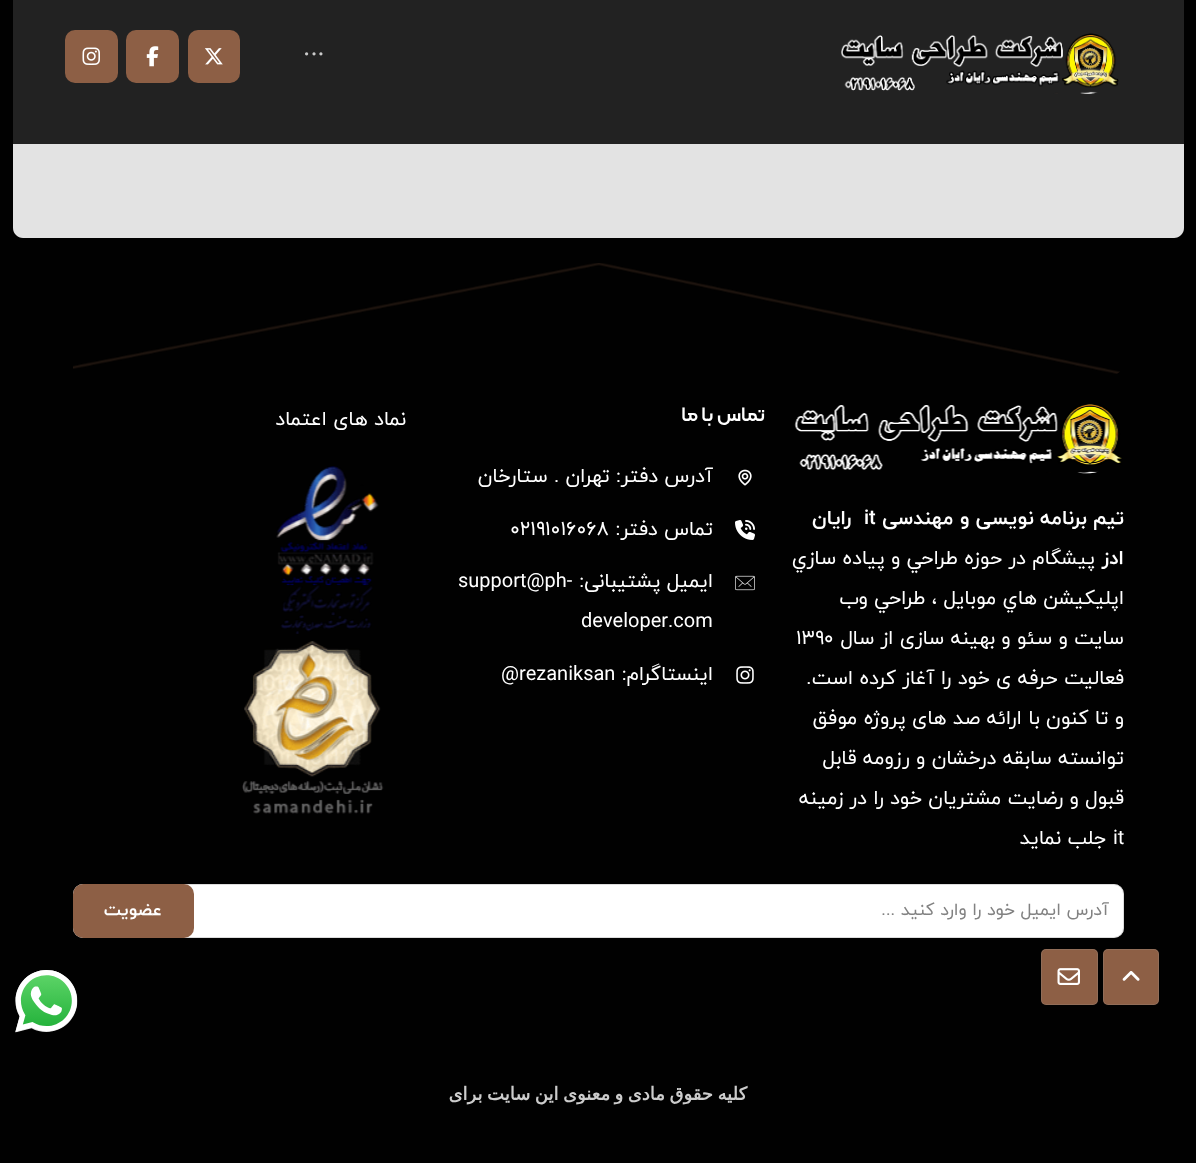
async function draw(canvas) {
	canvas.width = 1196;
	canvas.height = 1163;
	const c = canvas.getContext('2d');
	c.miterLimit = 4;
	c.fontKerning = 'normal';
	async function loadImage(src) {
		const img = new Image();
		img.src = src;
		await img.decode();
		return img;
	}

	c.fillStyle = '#010101';
	c.fillRect(0, 0, 1196, 1163);
	c.fillStyle = '#e3e3e3';
	c.beginPath();
	c.moveTo(23, -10);
	c.lineTo(1184, -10);
	c.lineTo(1184, 228);
	c.bezierCurveTo(1184, 233.5, 1179.5, 238, 1174, 238);
	c.lineTo(23, 238);
	c.bezierCurveTo(17.5, 238, 13, 233.5, 13, 228);
	c.lineTo(13, 0);
	c.bezierCurveTo(13, -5.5, 17.5, -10, 23, -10);
	c.closePath();
	c.fill();
	c.fillStyle = '#222';
	c.fillRect(13, 0, 1171, 144);
	c.drawImage(await loadImage('img1.png'), 841, 33, 278, 61);
	c.drawImage(await loadImage('img2.png'), 305, 52, 18, 4);
	c.fillStyle = '#8d5f45';
	c.beginPath();
	c.roundRect(188, 30, 52, 53, 10);
	c.fill();
	c.drawImage(await loadImage('img3.png'), 204, 48, 19, 17);
	c.beginPath();
	c.roundRect(126, 30, 53, 53, 10);
	c.fill();
	c.drawImage(await loadImage('img4.png'), 146, 46, 13, 21);
	c.beginPath();
	c.roundRect(65, 30, 53, 53, 10);
	c.fill();
	c.drawImage(await loadImage('img5.png'), 82, 47, 18, 18);
	c.drawImage(await loadImage('img6.png'), 73, 263, 1047, 111);
	c.direction = 'rtl';
	c.font = 'bold 25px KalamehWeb';
	c.fillStyle = '#fff';
	c.fillText('تماس با ما', 765, 421);
	c.drawImage(await loadImage('img7.png'), 738, 469, 14, 17);
	c.font = '20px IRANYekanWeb';
	c.fillText('آدرس دفتر: تهران . ستارخان', 713, 482);
	c.drawImage(await loadImage('img8.png'), 735, 520, 20, 20);
	c.fillText('تماس دفتر:', 713, 535);
	c.direction = 'ltr';
	c.fillText('۰۲۱۹۱۰۱۶۰۶۸', 510, 535);
	c.drawImage(await loadImage('img9.png'), 735, 575, 20, 16);
	c.direction = 'rtl';
	c.fillText('ایمیل پشتیبانی:', 713, 587);
	c.direction = 'ltr';
	c.fillText('support@ph-', 458, 587);
	c.fillText('developer.com', 581, 627);
	c.drawImage(await loadImage('img10.png'), 736, 666, 18, 18);
	c.direction = 'rtl';
	c.fillText('اینستاگرام:', 713, 680);
	c.direction = 'ltr';
	c.fillText('@rezaniksan', 501, 680);
	c.direction = 'rtl';
	c.fillText('نماد های اعتماد', 406, 425);
	c.drawImage(await loadImage('img11.png'), 276, 466, 103, 168);
	c.drawImage(await loadImage('img12.png'), 242, 641, 142, 173);
	c.drawImage(await loadImage('img13.png'), 794, 404, 328, 70);
	c.font = 'bold 20px IRANYekanWeb';
	c.fillText('تیم برنامه نویسی و مهندسی', 1124, 524);
	c.direction = 'ltr';
	c.fillText('it', 864, 524);
	c.direction = 'rtl';
	c.fillText('رایان', 851, 524);
	c.fillText('ادز', 1124, 564);
	c.font = '20px IRANYekanWeb';
	for (const [text, x, y] of [
		['پيشگام در حوزه طراحي و پياده سازي', 1095, 564],
		['اپليکيشن هاي موبايل ، طراحي وب', 1124, 604],
		['سايت و سئو و بهينه سازی از سال', 1124, 644],
	]) {
		c.fillText(text, x, y);
	}
	c.direction = 'ltr';
	c.fillText('۱۳۹۰', 796, 644);
	c.direction = 'rtl';
	for (const [text, x, y] of [
		['فعالیت حرفه ی خود را آغاز کرده است.', 1124, 684],
		['و تا کنون با ارائه صد های پروژه موفق', 1124, 724],
		['توانسته سابقه درخشان و رزومه قابل', 1124, 764],
		['قبول و رضایت مشتریان خود را در زمینه', 1124, 804],
	]) {
		c.fillText(text, x, y);
	}
	c.direction = 'ltr';
	c.fillText('it', 1113, 844);
	c.direction = 'rtl';
	c.fillText('جلب نماید', 1106, 844);
	c.beginPath();
	c.roundRect(73, 884, 1051, 54, 10);
	c.fill();
	c.beginPath();
	c.roundRect(73.5, 884.5, 1050, 53, 9.5);
	c.strokeStyle = '#a7a7a766';
	c.stroke();
	c.font = '17.5px IRANYekanWeb';
	c.fillStyle = '#828282';
	c.fillText('آدرس ایمیل خود را وارد کنید ...', 1109, 915);
	c.fillStyle = '#8d5f45';
	c.beginPath();
	c.roundRect(73, 884, 121, 54, 10);
	c.fill();
	c.font = 'bold 17.5px IRANYekanWeb';
	c.fillStyle = '#fff';
	c.fillText('عضویت', 162, 915);
	c.wordSpacing = '-1.25px';
	c.font = 'bold 18px DejaVu Sans';
	c.fillStyle = '#ccc';
	c.fillText('کلیه حقوق مادی و معنوی این سایت برای', 747, 1100);
	c.fillStyle = '#8d5f45';
	c.beginPath();
	c.roundRect(1103, 949, 56, 56, 5);
	c.fill();
	c.beginPath();
	c.roundRect(1103.5, 949.5, 55, 55, 4.5);
	c.strokeStyle = '#a7a7a733';
	c.stroke();
	c.drawImage(await loadImage('img14.png'), 1122, 971, 18, 10);
	c.beginPath();
	c.roundRect(1041, 949, 57, 56, 5);
	c.fill();
	c.beginPath();
	c.roundRect(1041.5, 949.5, 56, 55, 4.5);
	c.stroke();
	c.drawImage(await loadImage('img15.png'), 1057, 968, 23, 17);
	c.drawImage(await loadImage('img16.png'), 15, 970, 63, 63);
}

draw(document.querySelector('canvas'));
